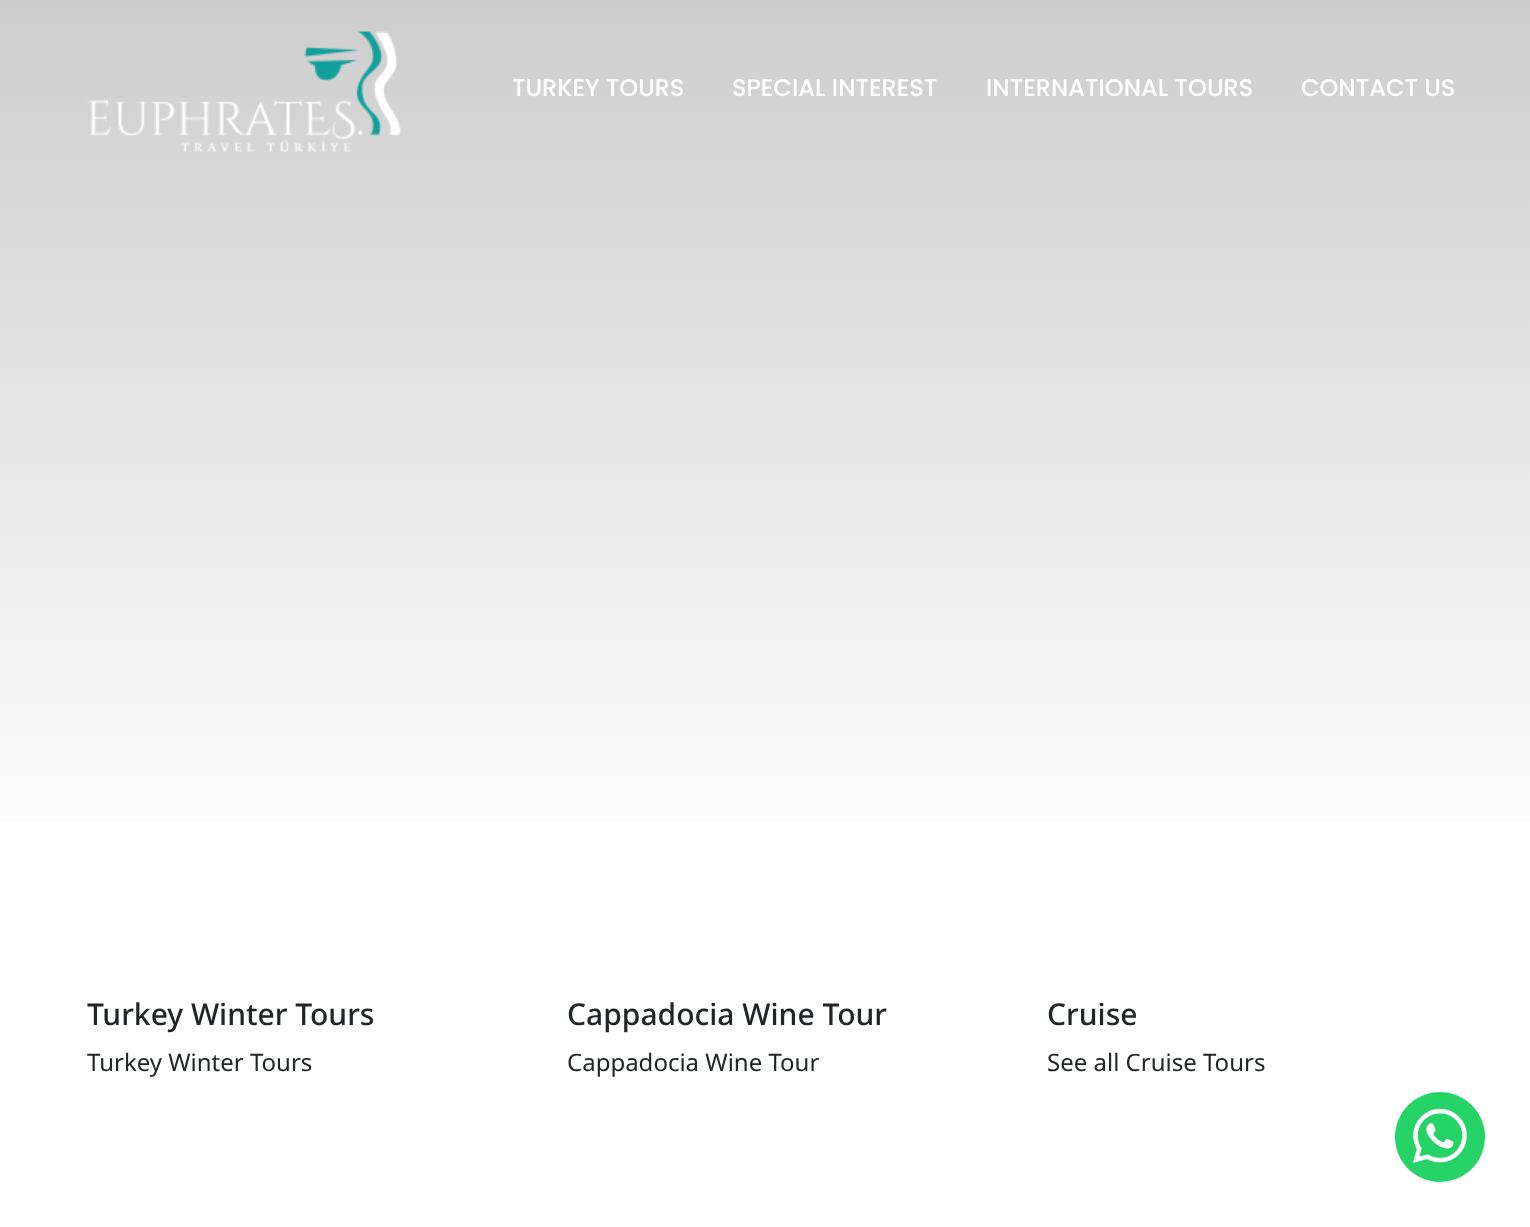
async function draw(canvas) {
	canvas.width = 1530;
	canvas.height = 1227;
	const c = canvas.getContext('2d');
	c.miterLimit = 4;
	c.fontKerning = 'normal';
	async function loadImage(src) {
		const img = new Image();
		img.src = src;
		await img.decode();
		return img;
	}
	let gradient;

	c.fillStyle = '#fff';
	c.fillRect(0, 0, 1530, 1227);
	gradient = c.createLinearGradient(765, 0, 765, 864);
	gradient.addColorStop(0, '#cdcdcd');
	gradient.addColorStop(1, '#fff');
	c.fillStyle = gradient;
	c.fillRect(0, 0, 1530, 821);
	c.drawImage(await loadImage('img1.png'), 87, 31, 314, 121);
	c.font = '500 24px Poppins';
	c.fillStyle = '#fff';
	for (const [text, x, y] of [
		['TURKEY TOURS', 512, 96],
		['SPECIAL INTEREST', 732, 96],
		['INTERNATIONAL TOURS', 986, 96],
		['CONTACT US', 1301, 96],
	]) {
		c.fillText(text, x, y);
	}
	c.font = '500 30px Noto Sans';
	c.fillStyle = '#212529';
	c.fillText('Turkey Winter Tours', 87, 1025);
	c.font = '24px Noto Sans';
	c.fillText('Turkey Winter Tours', 87, 1071);
	c.font = '500 30px Noto Sans';
	c.fillText('Cappadocia Wine Tour', 567, 1025);
	c.font = '24px Noto Sans';
	c.fillText('Cappadocia Wine Tour', 567, 1071);
	c.font = '500 30px Noto Sans';
	c.fillText('Cruise', 1047, 1025);
	c.font = '24px Noto Sans';
	c.fillText('See all Cruise Tours', 1047, 1071);
	c.fillStyle = '#25d366';
	c.beginPath();
	c.arc(1440, 1137, 45, 0, 2 * Math.PI);
	c.fill();
	c.drawImage(await loadImage('img2.png'), 1413, 1108, 54, 55);
}

draw(document.querySelector('canvas'));
